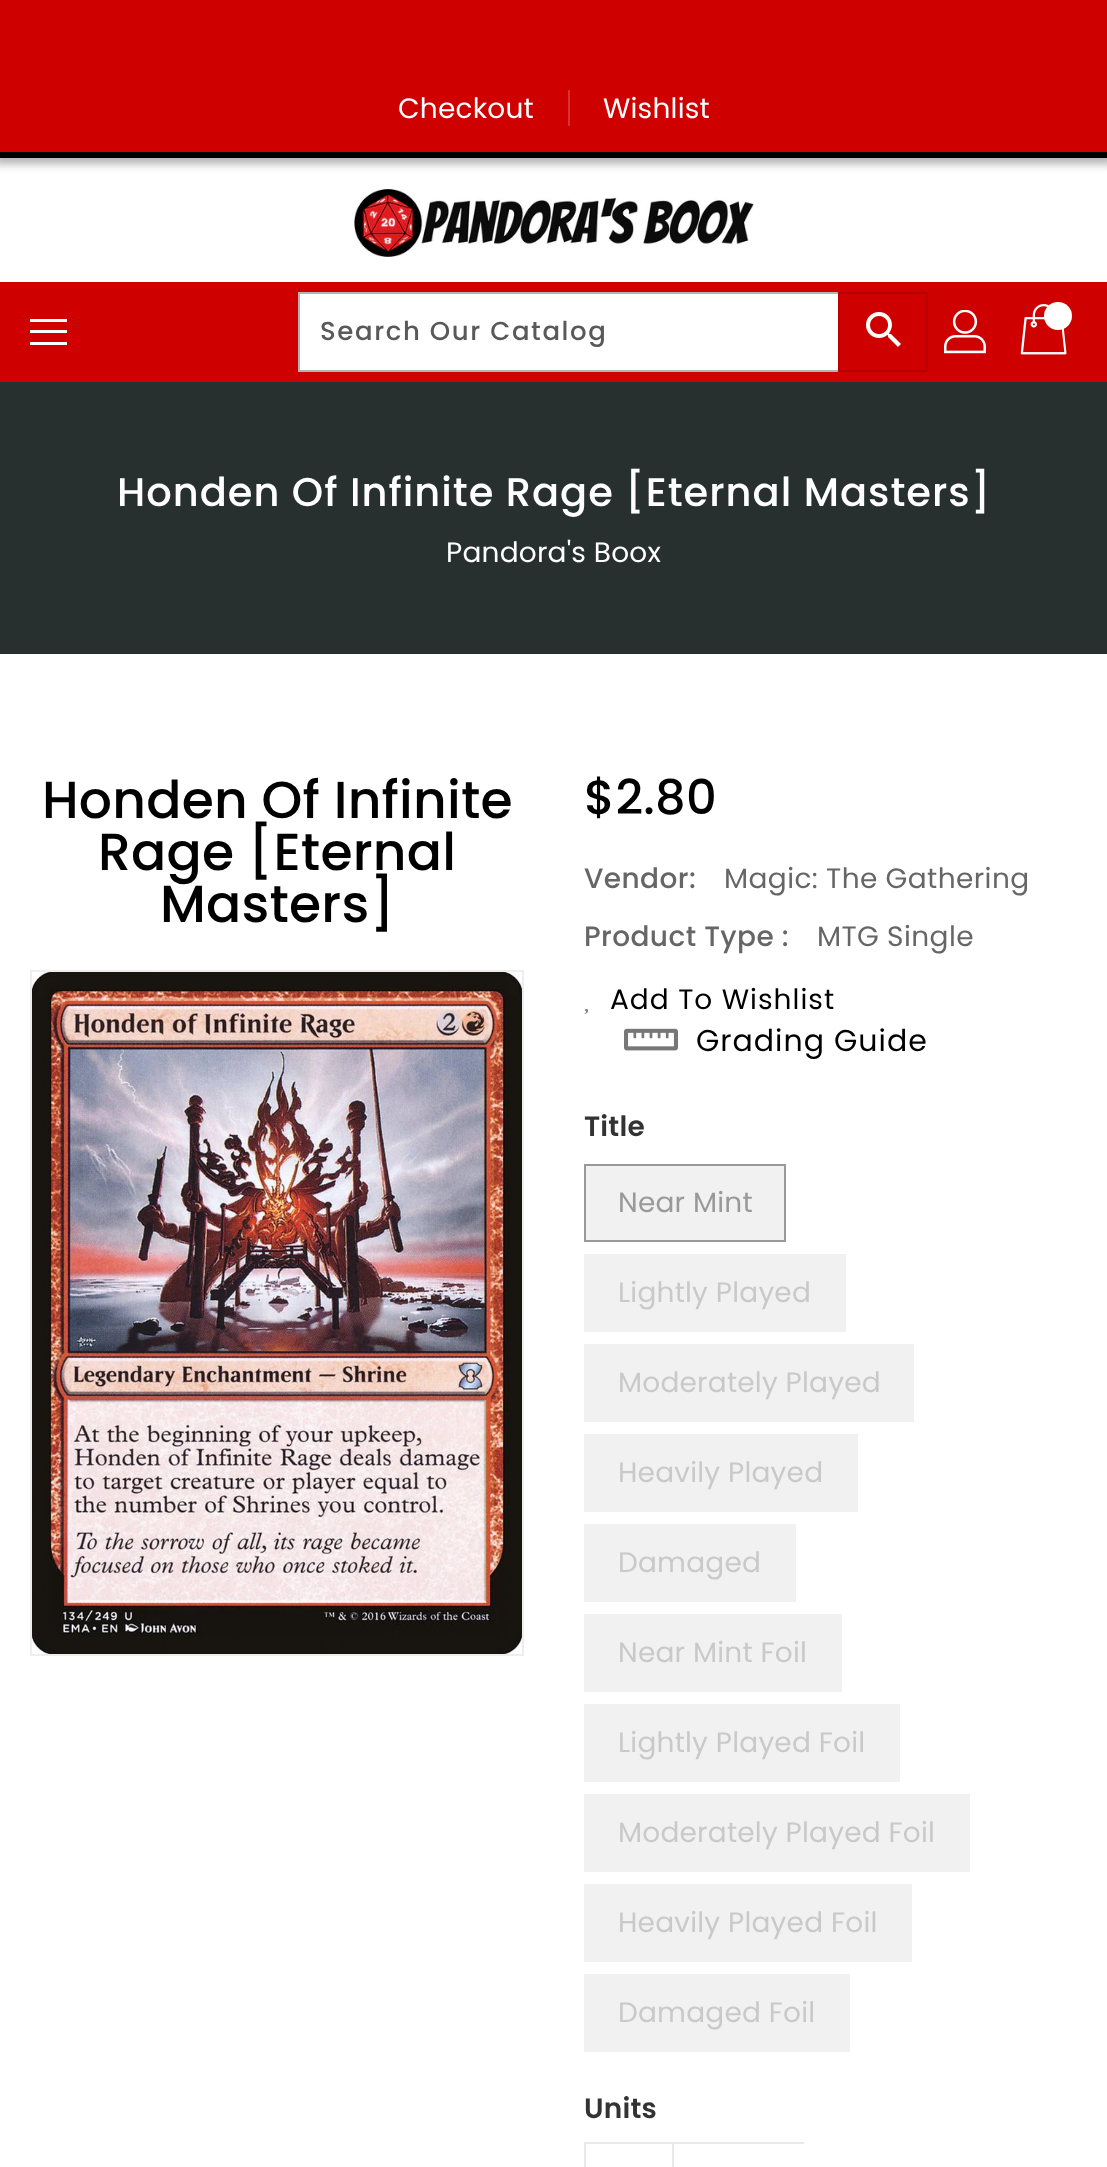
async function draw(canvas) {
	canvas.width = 1107;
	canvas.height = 2167;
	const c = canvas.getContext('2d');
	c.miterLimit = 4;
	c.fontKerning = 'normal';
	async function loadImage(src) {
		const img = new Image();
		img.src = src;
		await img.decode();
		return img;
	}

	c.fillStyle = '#fff';
	c.fillRect(0, 0, 1107, 2167);
	c.fillStyle = '#0000004d';
	c.filter = 'blur(4px)';
	c.beginPath();
	c.rect(-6, -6, 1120, 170);
	c.fill();
	c.filter = 'none';
	c.fillStyle = '#ce0000';
	c.fillRect(0, 0, 1107, 152);
	c.fillStyle = '#000';
	c.fillRect(0, 152, 1107, 6);
	c.letterSpacing = '0.2px';
	c.font = '28px Poppins';
	c.fillStyle = '#fff';
	c.fillText('Checkout', 398, 118);
	c.fillStyle = '#d83333';
	c.fillRect(568, 90, 2, 36);
	c.fillStyle = '#fff';
	c.fillText('Wishlist', 603, 118);
	c.drawImage(await loadImage('img1.png'), 354, 188, 400, 69);
	for (const [x, y, w, h, color] of [
		[0, 282, 1107, 100, '#ce0000'],
		[30, 319, 37, 3, '#fff'],
		[30, 330, 37, 3, '#fff'],
		[30, 342, 37, 3, '#fff'],
		[300, 294, 538, 76, '#fff'],
	]) {
		c.fillStyle = color;
		c.fillRect(x, y, w, h);
	}
	c.strokeStyle = '#b3b3b3';
	c.lineWidth = 2;
	c.strokeRect(299, 293, 628, 78);
	c.letterSpacing = '1.6px';
	c.font = '500 26px Poppins';
	c.fillStyle = '#595959';
	c.fillText('Search Our Catalog', 320, 340);
	c.strokeStyle = '#b90000';
	c.strokeRect(839, 293, 88, 78);
	c.drawImage(await loadImage('img2.png'), 866, 312, 35, 35);
	c.drawImage(await loadImage('img3.png'), 944, 310, 42, 44);
	c.drawImage(await loadImage('img4.png'), 1020, 304, 47, 51);
	c.fillStyle = '#fff';
	c.beginPath();
	c.arc(1058, 316, 14, 0, 2 * Math.PI);
	c.fill();
	c.fillStyle = '#27302f';
	c.fillRect(0, 382, 1107, 272);
	c.letterSpacing = '1px';
	c.font = '500 40px Poppins';
	c.fillStyle = '#fff';
	c.fillText('Honden Of Infinite Rage [Eternal Masters]', 117, 506);
	c.letterSpacing = '0.2px';
	c.font = '28px Poppins';
	c.fillText('Pandora\'s Boox', 446, 562);
	c.font = '500 52px Poppins';
	c.fillStyle = '#000';
	for (const [text, x, y] of [
		['Honden Of Infinite', 42, 818],
		['Rage [Eternal', 98, 870],
		['Masters]', 160, 922],
	]) {
		c.fillText(text, x, y);
	}
	c.strokeStyle = '#eee';
	c.strokeRect(31, 971, 492, 684);
	c.drawImage(await loadImage('img5.png'), 32, 972, 490, 682);
	c.font = '500 48px Poppins';
	c.fillText('$2.80', 584, 814);
	c.letterSpacing = '0.4px';
	c.font = '500 28px Poppins';
	c.fillStyle = '#666';
	c.fillText('Vendor:', 584, 888);
	c.font = '28px Poppins';
	c.fillText('Magic: The Gathering', 724, 888);
	c.font = '500 28px Poppins';
	c.fillText('Product Type :', 584, 946);
	c.font = '28px Poppins';
	c.fillText('MTG Single', 817, 946);
	c.letterSpacing = '1px';
	c.fillStyle = '#000';
	c.fillText('Add To Wishlist', 610, 1009);
	c.drawImage(await loadImage('img6.png'), 584, 1009, 4, 5);
	c.drawImage(await loadImage('img7.png'), 624, 1028, 54, 23);
	c.font = '30px Poppins';
	c.fillText('Grading Guide', 696, 1051);
	c.letterSpacing = '0.2px';
	c.font = '600 28px Poppins';
	c.fillStyle = '#333';
	c.fillText('Title', 584, 1136);
	c.fillStyle = '#f1f1f1';
	c.beginPath();
	c.rect(585, 1165, 200, 76);
	c.fill();
	c.strokeStyle = '#999';
	c.stroke();
	c.font = '28px Poppins';
	c.fillStyle = '#999';
	c.fillText('Near Mint', 618, 1212);
	c.fillStyle = '#f1f1f1';
	c.fillRect(584, 1254, 262, 78);
	c.fillStyle = '#c9c9c9';
	c.fillText('Lightly Played', 618, 1302);
	c.fillStyle = '#f1f1f1';
	c.fillRect(584, 1344, 330, 78);
	c.fillStyle = '#c9c9c9';
	c.fillText('Moderately Played', 618, 1392);
	c.fillStyle = '#f1f1f1';
	c.fillRect(584, 1434, 274, 78);
	c.fillStyle = '#c9c9c9';
	c.fillText('Heavily Played', 618, 1482);
	c.fillStyle = '#f1f1f1';
	c.fillRect(584, 1524, 212, 78);
	c.fillStyle = '#c9c9c9';
	c.fillText('Damaged', 618, 1572);
	c.fillStyle = '#f1f1f1';
	c.fillRect(584, 1614, 258, 78);
	c.fillStyle = '#c9c9c9';
	c.fillText('Near Mint Foil', 618, 1662);
	c.fillStyle = '#f1f1f1';
	c.fillRect(584, 1704, 316, 78);
	c.fillStyle = '#c9c9c9';
	c.fillText('Lightly Played Foil', 618, 1752);
	c.fillStyle = '#f1f1f1';
	c.fillRect(584, 1794, 386, 78);
	c.fillStyle = '#c9c9c9';
	c.fillText('Moderately Played Foil', 618, 1842);
	c.fillStyle = '#f1f1f1';
	c.fillRect(584, 1884, 328, 78);
	c.fillStyle = '#c9c9c9';
	c.fillText('Heavily Played Foil', 618, 1932);
	c.fillStyle = '#f1f1f1';
	c.fillRect(584, 1974, 266, 78);
	c.fillStyle = '#c9c9c9';
	c.fillText('Damaged Foil', 618, 2022);
	c.font = '600 28px Poppins';
	c.fillStyle = '#333';
	c.fillText('Units', 584, 2118);
	c.strokeStyle = '#e9e9e9';
	c.strokeRect(585, 2143, 88, 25);
	c.fillStyle = '#e9e9e9';
	c.fillRect(674, 2142, 130, 2);
}

draw(document.querySelector('canvas'));
